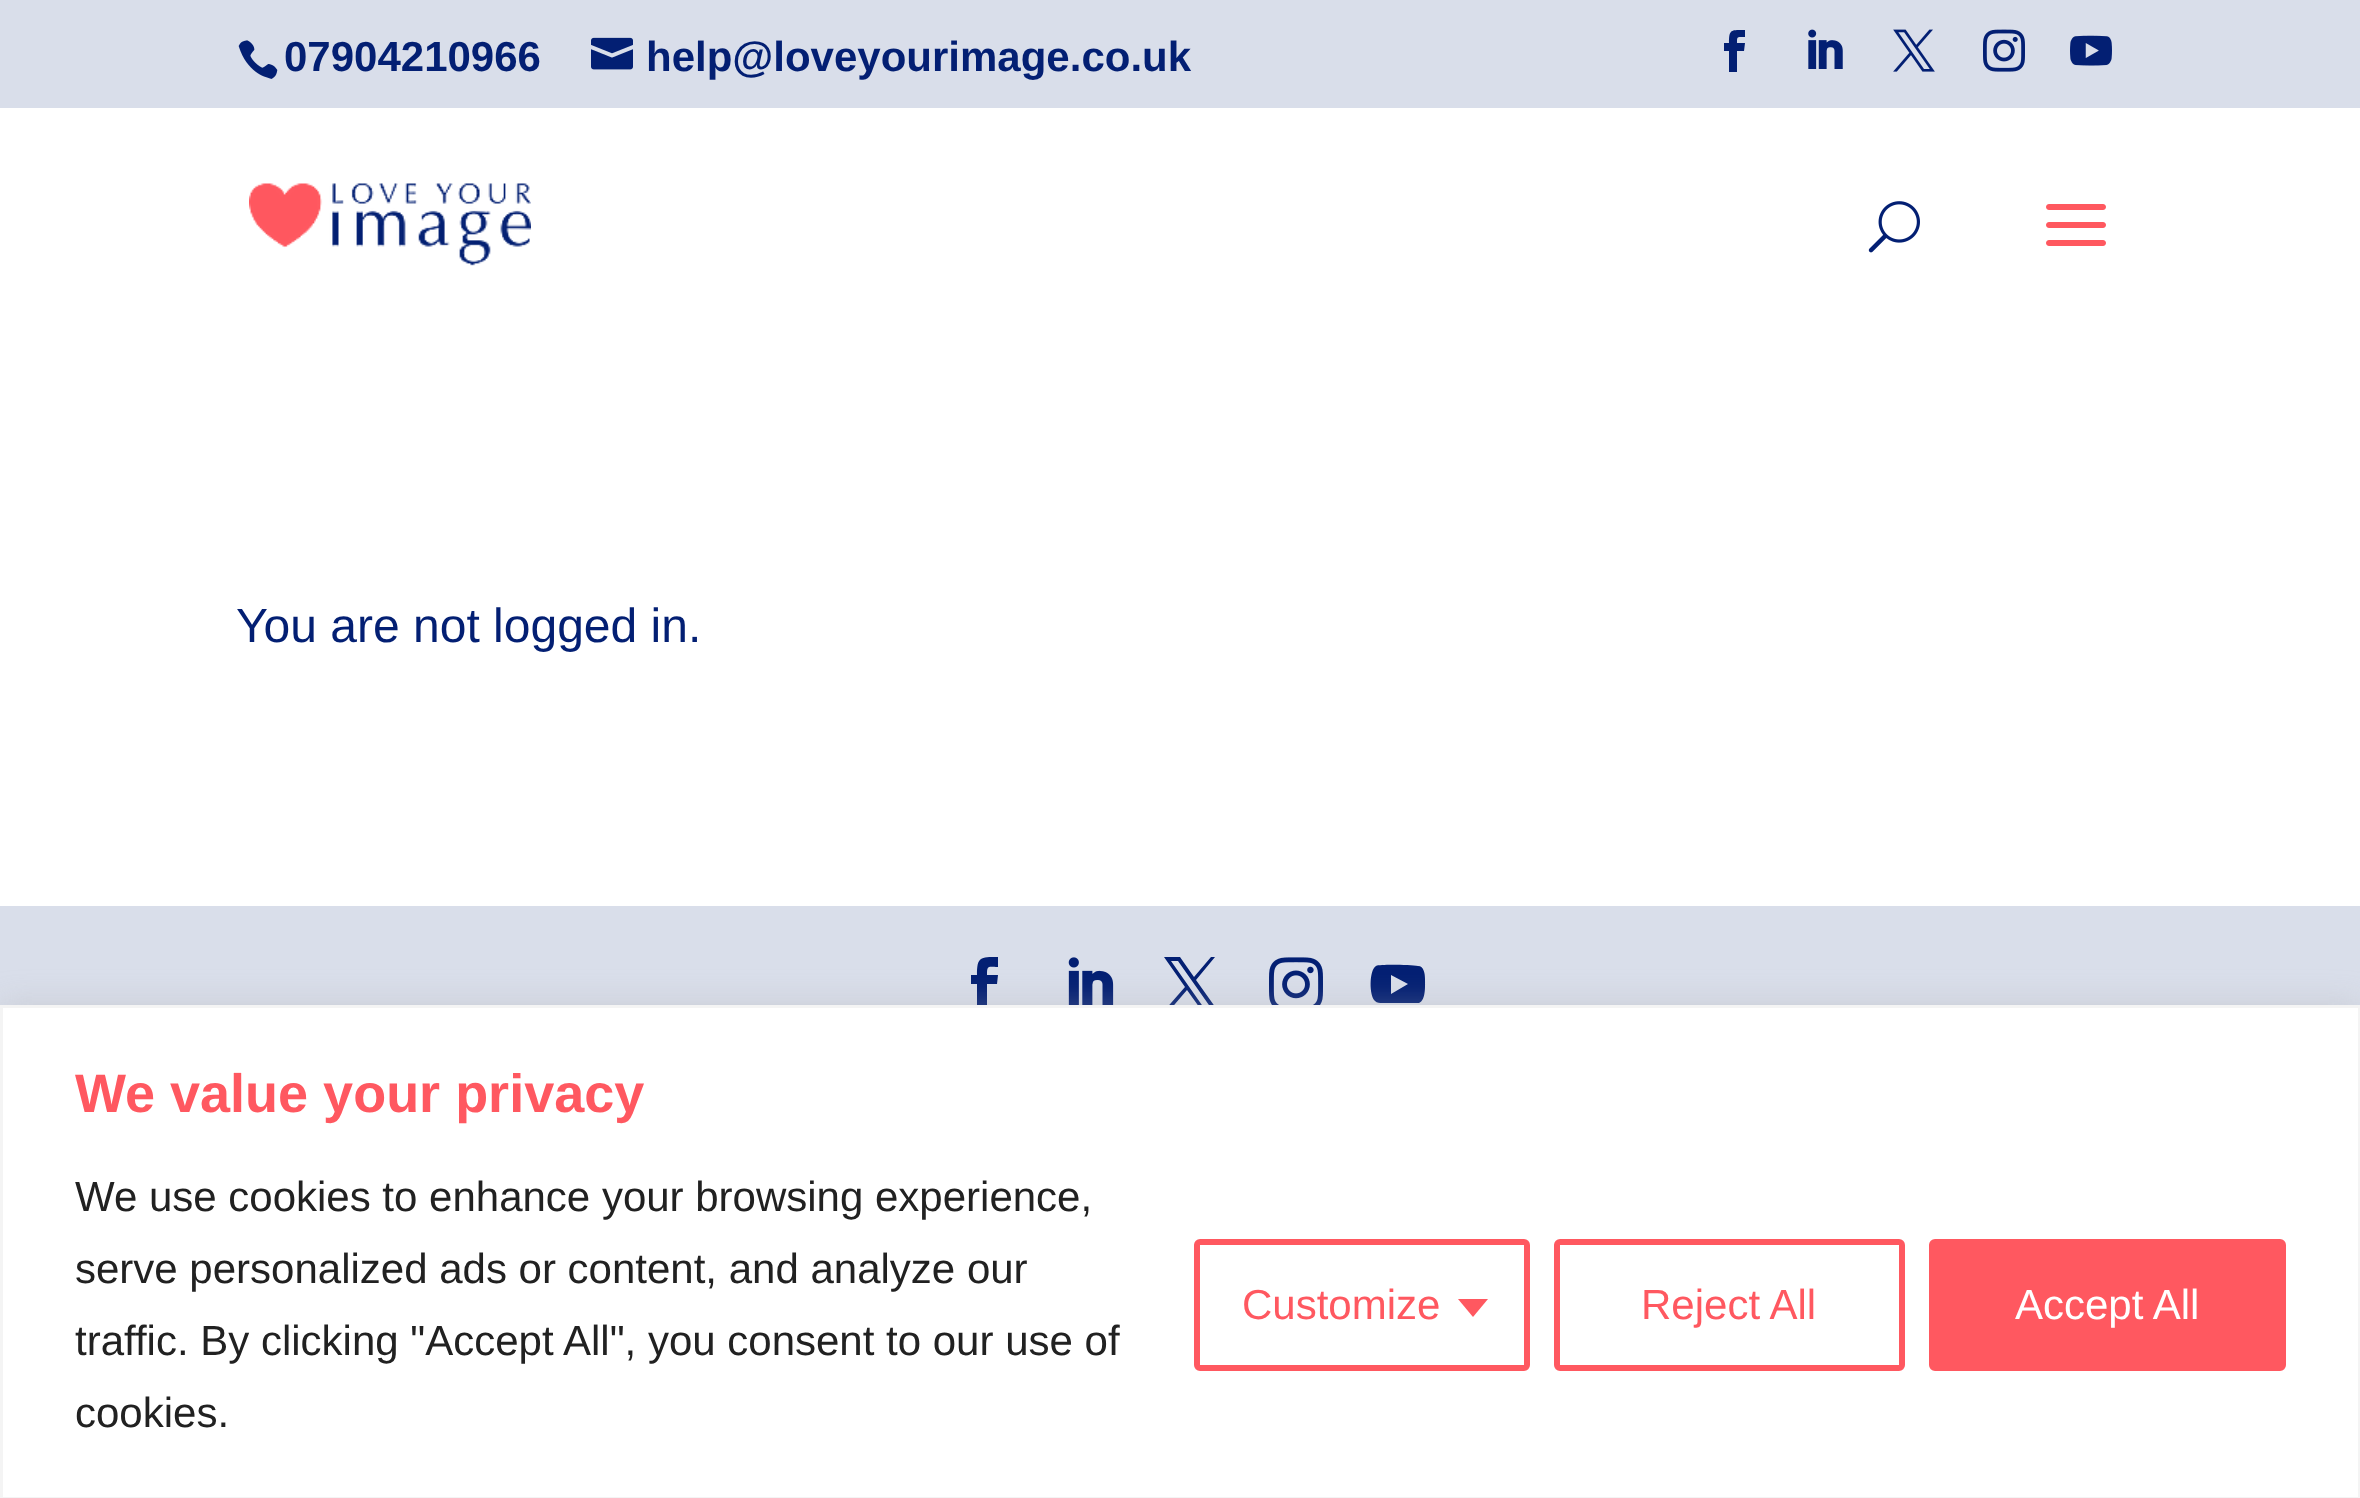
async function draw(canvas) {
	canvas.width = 2360;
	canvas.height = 1498;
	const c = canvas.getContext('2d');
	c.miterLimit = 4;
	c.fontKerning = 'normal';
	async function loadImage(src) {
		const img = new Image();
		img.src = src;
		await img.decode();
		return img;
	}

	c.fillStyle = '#fff';
	c.fillRect(0, 0, 2360, 1498);
	c.fillStyle = '#d9deea';
	c.fillRect(0, 0, 2360, 108);
	c.drawImage(await loadImage('img1.png'), 238, 40, 40, 39);
	c.font = 'bold 42px Liberation Sans';
	c.fillStyle = '#031f73';
	c.fillText('07904210966', 284, 71);
	c.drawImage(await loadImage('img2.png'), 591, 37, 42, 33);
	c.fillText('help@loveyourimage.co.uk', 646, 71);
	c.beginPath();
	c.moveTo(1729, 72);
	c.lineTo(1737, 72);
	c.lineTo(1737, 51);
	c.lineTo(1744, 51);
	c.lineTo(1745, 43);
	c.lineTo(1737, 43);
	c.bezierCurveTo(1737, 36, 1737, 37, 1745, 37);
	c.lineTo(1745, 30);
	c.bezierCurveTo(1731, 30, 1729, 29, 1729, 43);
	c.lineTo(1724, 43);
	c.lineTo(1724, 51);
	c.lineTo(1729, 51);
	c.closePath();
	c.fill();
	c.drawImage(await loadImage('img3.png'), 1808, 29, 35, 40);
	c.drawImage(await loadImage('img4.png'), 1893, 29, 42, 43);
	c.drawImage(await loadImage('img5.png'), 1983, 29, 42, 43);
	c.drawImage(await loadImage('img6.png'), 2070, 35, 42, 31);
	c.drawImage(await loadImage('img7.png'), 249, 183, 282, 83);
	c.drawImage(await loadImage('img8.png'), 1868, 201, 52, 52);
	c.drawImage(await loadImage('img9.png'), 2046, 204, 60, 42);
	c.font = '48px Liberation Sans';
	c.fillText('You are not logged in.', 236, 642);
	c.fillStyle = '#d9deea';
	c.fillRect(0, 906, 2360, 99);
	c.fillStyle = '#031f73';
	c.beginPath();
	c.moveTo(977, 1011);
	c.lineTo(987, 1011);
	c.lineTo(987, 984);
	c.lineTo(997, 984);
	c.lineTo(998, 975);
	c.lineTo(987, 975);
	c.bezierCurveTo(987, 965, 988, 967, 998, 967);
	c.lineTo(998, 957);
	c.bezierCurveTo(980, 957, 977, 957, 977, 975);
	c.lineTo(971, 975);
	c.lineTo(971, 984);
	c.lineTo(977, 984);
	c.closePath();
	c.fill();
	c.drawImage(await loadImage('img10.png'), 1068, 957, 46, 48);
	c.beginPath();
	c.moveTo(1164, 957);
	c.lineTo(1185, 987);
	c.lineTo(1164, 1011);
	c.lineTo(1169, 1011);
	c.lineTo(1187, 990);
	c.lineTo(1202, 1011);
	c.lineTo(1218, 1011);
	c.lineTo(1196, 980);
	c.lineTo(1215, 957);
	c.lineTo(1211, 957);
	c.lineTo(1194, 977);
	c.lineTo(1180, 957);
	c.closePath();
	c.moveTo(1171, 961);
	c.lineTo(1178, 961);
	c.lineTo(1211, 1008);
	c.lineTo(1204, 1008);
	c.closePath();
	c.fill();
	c.drawImage(await loadImage('img11.png'), 1269, 957, 54, 48);
	c.beginPath();
	c.moveTo(1418, 966);
	c.bezierCurveTo(1411, 965, 1381, 964, 1376, 966);
	c.bezierCurveTo(1369, 970, 1369, 996, 1375, 1001);
	c.bezierCurveTo(1377, 1003, 1380, 1003, 1382, 1003);
	c.lineTo(1408, 1003);
	c.lineTo(1419, 1003);
	c.bezierCurveTo(1426, 1000, 1425, 986, 1425, 979);
	c.bezierCurveTo(1425, 974, 1424, 966, 1418, 966);
	c.closePath();
	c.moveTo(1391, 994);
	c.lineTo(1391, 975);
	c.lineTo(1408, 984);
	c.closePath();
	c.fill();
	c.fillStyle = '#acabab4d';
	c.filter = 'blur(15px)';
	c.beginPath();
	c.rect(0, 1002, 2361, 495);
	c.fill();
	c.filter = 'none';
	c.fillStyle = '#fff';
	c.beginPath();
	c.rect(1.5, 1006.5, 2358, 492);
	c.fill();
	c.strokeStyle = '#f4f4f4';
	c.lineWidth = 3;
	c.stroke();
	c.font = 'bold 54px Liberation Sans';
	c.fillStyle = '#ff5860';
	c.fillText('We value your privacy', 75, 1112);
	c.font = '42px Liberation Sans';
	c.fillStyle = '#212121';
	for (const [text, x, y] of [
		['We use cookies to enhance your browsing experience,', 75, 1211],
		['serve personalized ads or content, and analyze our', 75, 1283],
		['traffic. By clicking "Accept All", you consent to our use of', 75, 1355],
		['cookies.', 75, 1427],
	]) {
		c.fillText(text, x, y);
	}
	c.beginPath();
	c.roundRect(1197, 1242, 330, 126, 3);
	c.strokeStyle = '#ff5860';
	c.lineWidth = 6;
	c.stroke();
	c.fillStyle = '#ff5860';
	c.fillText('Customize', 1242, 1319);
	c.beginPath();
	c.moveTo(1458, 1299);
	c.lineTo(1488, 1299);
	c.lineTo(1473, 1317);
	c.closePath();
	c.fill();
	c.beginPath();
	c.roundRect(1557, 1242, 345, 126, 3);
	c.stroke();
	c.fillText('Reject All', 1641, 1319);
	c.beginPath();
	c.roundRect(1932, 1242, 351, 126, 3);
	c.fill();
	c.stroke();
	c.fillStyle = '#fff';
	c.fillText('Accept All', 2015, 1319);
}

draw(document.querySelector('canvas'));
